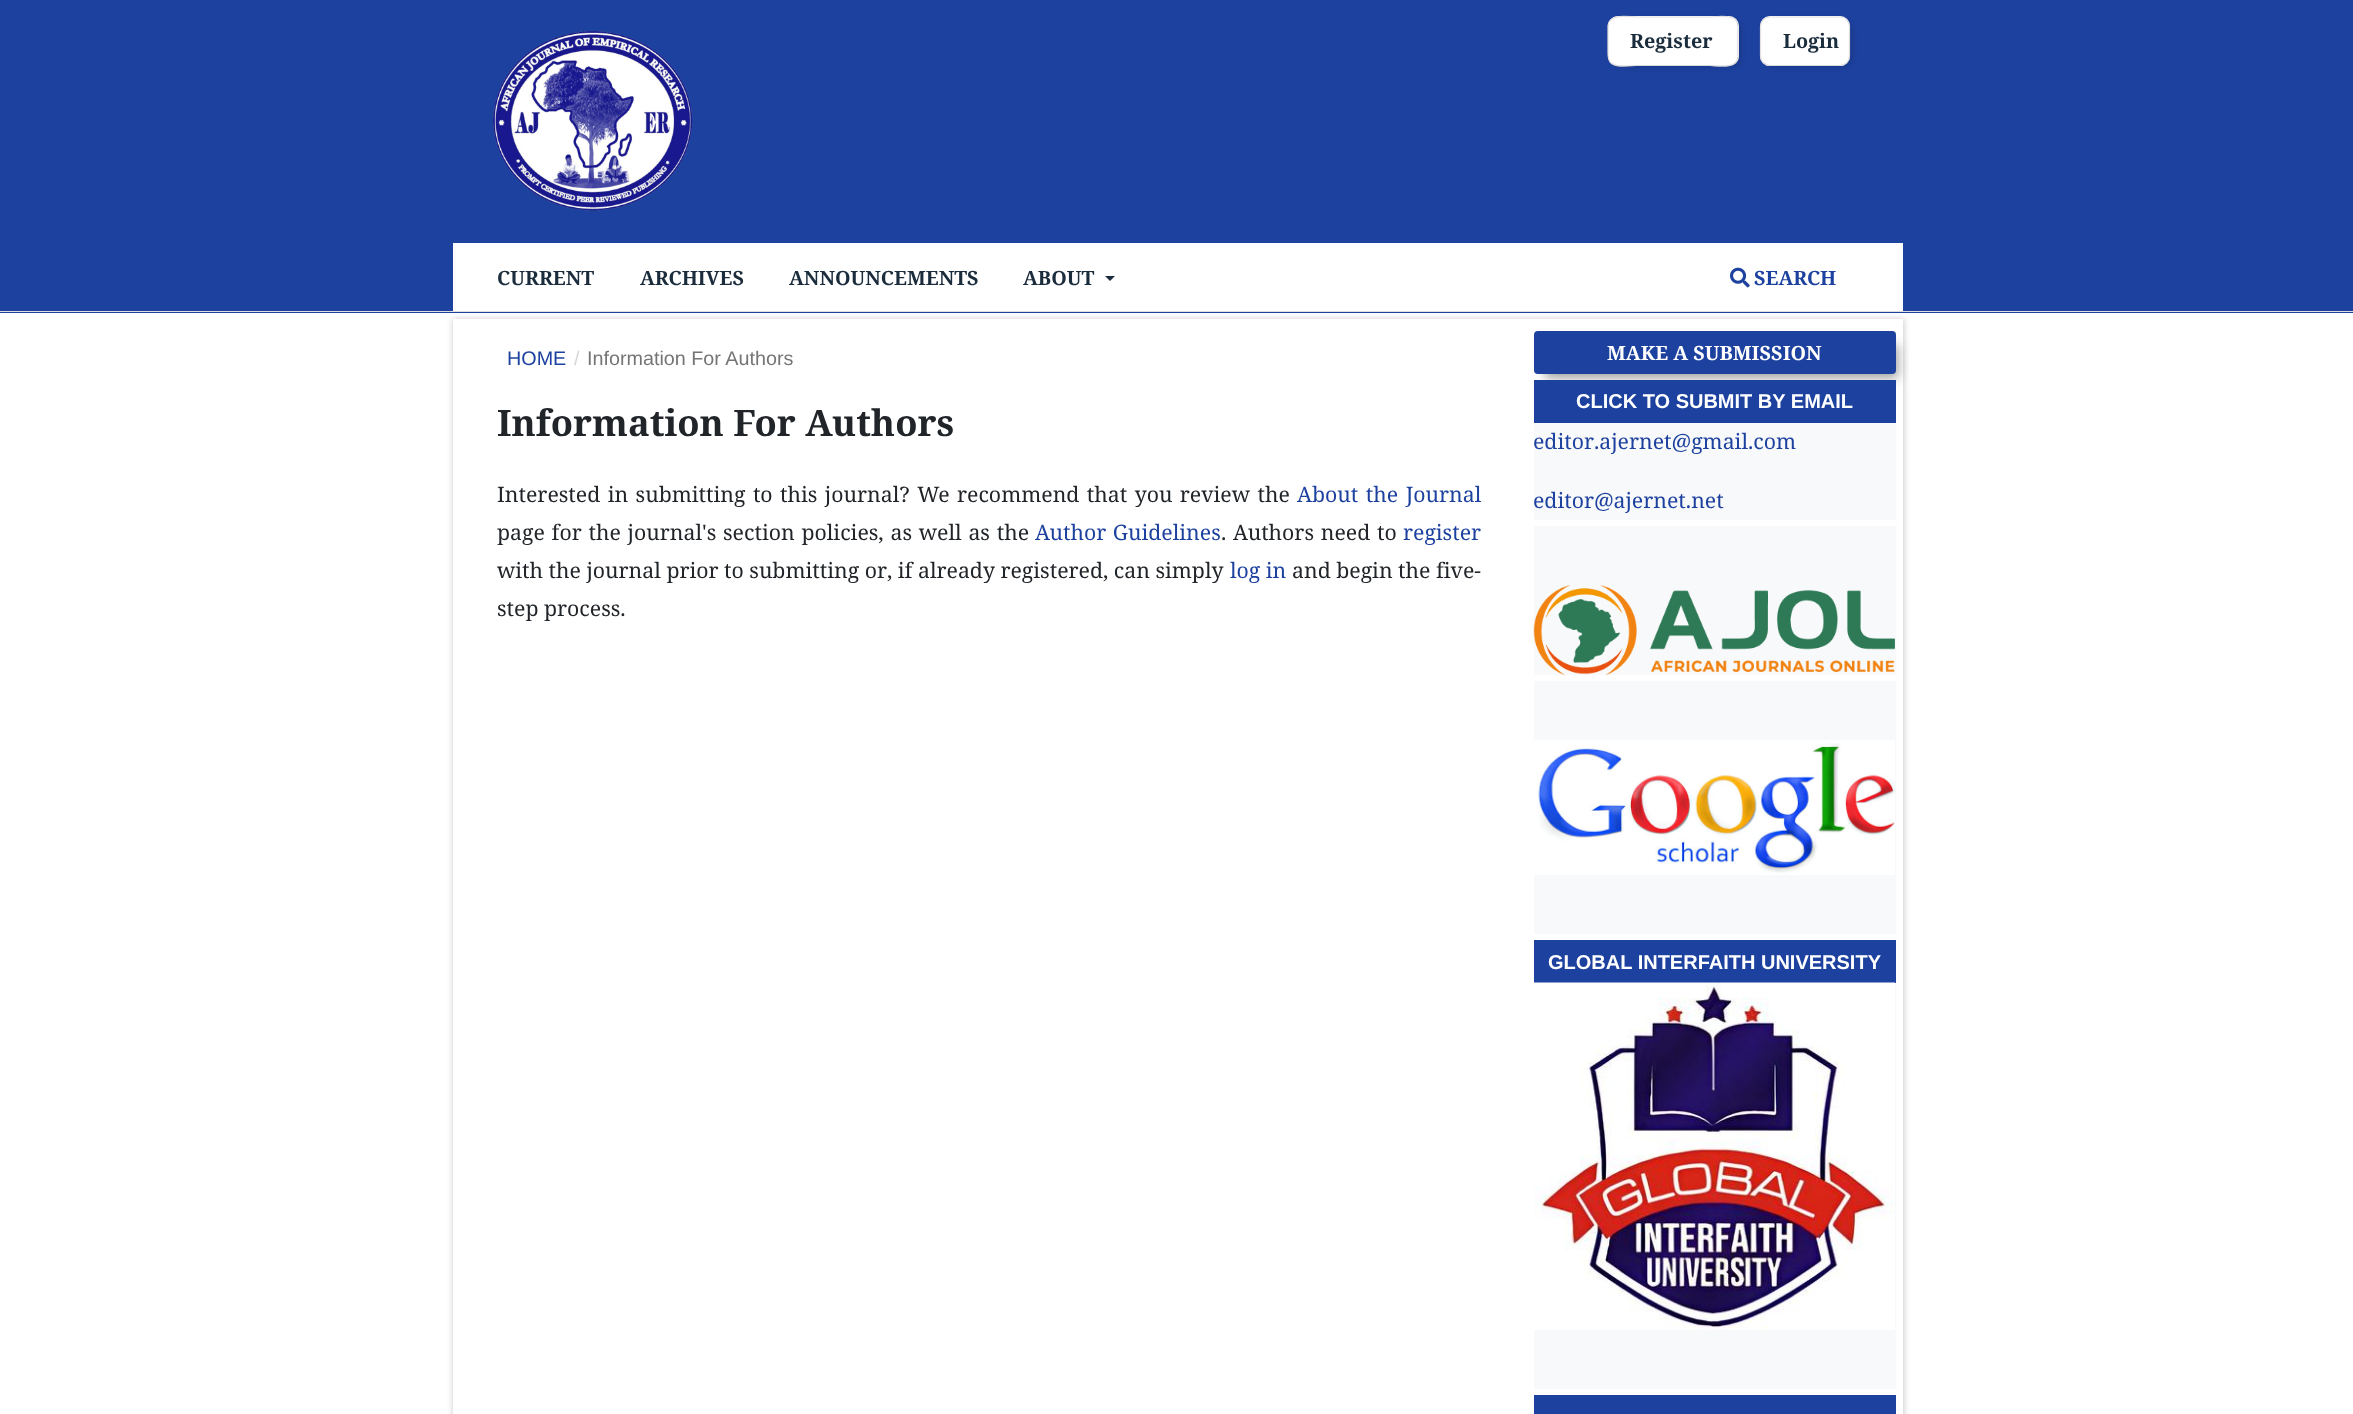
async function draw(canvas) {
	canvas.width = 2353;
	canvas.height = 1414;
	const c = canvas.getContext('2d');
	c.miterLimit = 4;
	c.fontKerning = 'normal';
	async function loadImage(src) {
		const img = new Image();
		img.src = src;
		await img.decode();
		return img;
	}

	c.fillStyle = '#fff';
	c.fillRect(0, 0, 2353, 1414);
	c.fillStyle = '#1d419f';
	c.fillRect(0, 0, 2353, 313);
	c.fillStyle = '#ddd';
	c.fillRect(0, 311, 2353, 1);
	c.drawImage(await loadImage('img1.png'), 493, 31, 200, 180);
	c.fillStyle = '#00000033';
	c.filter = 'blur(3px)';
	c.beginPath();
	c.roundRect(1614, 21, 126, 45, 8);
	c.fill();
	c.filter = 'none';
	c.fillStyle = '#fff';
	c.beginPath();
	c.roundRect(1608, 16, 131, 50, 10);
	c.fill();
	c.beginPath();
	c.moveTo(1735.5, 19.5);
	c.bezierCurveTo(1738.5, 23, 1738, 27, 1738, 31);
	c.lineTo(1738, 57);
	c.bezierCurveTo(1737, 70, 1716.5, 65.5, 1710, 65.5);
	c.lineTo(1636, 65.5);
	c.bezierCurveTo(1632, 65.5, 1616.5, 68.5, 1611, 63);
	c.strokeStyle = '#dadada';
	c.lineWidth = 1.2;
	c.stroke();
	c.beginPath();
	c.moveTo(1611, 63);
	c.bezierCurveTo(1607.5, 59.5, 1608, 55.5, 1608, 51);
	c.lineTo(1608, 25.5);
	c.bezierCurveTo(1609.5, 12.5, 1629.5, 17, 1636, 17);
	c.lineTo(1710, 17);
	c.bezierCurveTo(1714, 17, 1729.5, 14, 1735.5, 19.5);
	c.strokeStyle = '#e6dfdf';
	c.stroke();
	c.font = 'bold 19.75px Noto Serif';
	c.fillStyle = '#1b2c3d';
	c.fillText('Register', 1630, 48);
	c.fillStyle = '#00000033';
	c.filter = 'blur(3px)';
	c.beginPath();
	c.roundRect(1766, 21, 85, 45, 8);
	c.fill();
	c.filter = 'none';
	c.fillStyle = '#fff';
	c.beginPath();
	c.roundRect(1760, 16, 90, 50, 10);
	c.fill();
	c.beginPath();
	c.moveTo(1846.5, 19.5);
	c.bezierCurveTo(1848.5, 21.5, 1849.5, 24, 1849.5, 26);
	c.lineTo(1849.5, 56);
	c.bezierCurveTo(1849.5, 58.5, 1848.5, 61, 1846.5, 63);
	c.bezierCurveTo(1845, 64.5, 1842.5, 65.5, 1840, 65.5);
	c.lineTo(1770, 65.5);
	c.bezierCurveTo(1767.5, 65.5, 1765, 64.5, 1763.5, 63);
	c.strokeStyle = '#dadada';
	c.stroke();
	c.beginPath();
	c.moveTo(1763.5, 63);
	c.bezierCurveTo(1761.5, 61, 1760.5, 58.5, 1760.5, 56);
	c.lineTo(1760.5, 26.5);
	c.bezierCurveTo(1760.5, 24, 1761.5, 21.5, 1763.5, 19.5);
	c.bezierCurveTo(1765, 18, 1767.5, 17, 1770, 17);
	c.lineTo(1840, 17);
	c.bezierCurveTo(1842.5, 17, 1845, 18, 1846.5, 19.5);
	c.strokeStyle = '#e6dfdf';
	c.stroke();
	c.fillStyle = '#1b2c3d';
	c.fillText('Login', 1783, 48);
	c.fillStyle = '#fff';
	c.fillRect(453, 243, 1450, 68);
	c.fillStyle = '#1b2c3d';
	for (const [text, x, y] of [
		['CURRENT', 497, 285],
		['ARCHIVES', 640, 285],
		['ANNOUNCEMENTS', 789, 285],
		['ABOUT', 1023, 285],
	]) {
		c.fillText(text, x, y);
	}
	c.beginPath();
	c.moveTo(1105, 276);
	c.lineTo(1115, 276);
	c.lineTo(1110, 281);
	c.closePath();
	c.fill();
	c.drawImage(await loadImage('img2.png'), 1730, 267, 20, 21);
	c.fillStyle = '#1d419f';
	c.fillText('SEARCH', 1754, 285);
	c.save();
	c.beginPath();
	c.moveTo(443, 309);
	c.lineTo(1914, 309);
	c.lineTo(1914, 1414);
	c.lineTo(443, 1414);
	c.closePath();
	c.moveTo(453, 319);
	c.lineTo(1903, 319);
	c.lineTo(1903, 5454);
	c.lineTo(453, 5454);
	c.closePath();
	c.clip('evenodd');
	c.fillStyle = '#67686b57';
	c.filter = 'blur(3px)';
	c.beginPath();
	c.rect(453, 319, 1451, 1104);
	c.fill();
	c.filter = 'none';
	c.restore();
	c.font = '19.75px Liberation Sans';
	c.fillText('HOME', 507, 365);
	c.fillStyle = '#d6d6d6';
	c.fillText('/', 574, 365);
	c.fillStyle = '#757575';
	c.fillText('Information For Authors', 587, 365);
	c.font = 'bold 36.4px Noto Serif';
	c.fillStyle = '#212529';
	c.fillText('Information For Authors', 497, 436);
	c.wordSpacing = '1.9px';
	c.font = '21.25px Noto Serif';
	c.fillText('Interested in submitting to this journal? We recommend that you review the', 497, 502);
	c.wordSpacing = '2px';
	c.fillStyle = '#1d419f';
	c.fillText('About the Journal', 1297, 502);
	c.wordSpacing = '1.25px';
	c.fillStyle = '#212529';
	c.fillText('page for the journal\'s section policies, as well as the', 497, 540);
	c.wordSpacing = '1px';
	c.fillStyle = '#1d419f';
	c.fillText('Author Guidelines', 1035, 540);
	c.wordSpacing = '1.25px';
	c.fillStyle = '#212529';
	c.fillText('. Authors need to', 1221, 540);
	c.wordSpacing = '0px';
	c.fillStyle = '#1d419f';
	c.fillText('register', 1403, 540);
	c.fillStyle = '#212529';
	c.fillText('with the journal prior to submitting or, if already registered, can simply', 497, 578);
	c.fillStyle = '#1d419f';
	c.fillText('log in', 1230, 578);
	c.fillStyle = '#212529';
	c.fillText('and begin the five-', 1292, 578);
	c.fillText('step process.', 497, 616);
	c.fillStyle = '#f8f9fa';
	c.fillRect(1534, 331, 362, 43);
	c.fillStyle = '#9e9e9e';
	c.filter = 'blur(5.5px)';
	c.beginPath();
	c.rect(1545, 345, 353, 33);
	c.fill();
	c.filter = 'none';
	c.fillStyle = '#1d419f';
	c.beginPath();
	c.roundRect(1534, 331, 362, 43, 4);
	c.fill();
	c.font = 'bold 19.75px Noto Serif';
	c.fillStyle = '#fff';
	c.fillText('MAKE A SUBMISSION', 1607, 360);
	c.fillStyle = '#1d419f';
	c.fillRect(1534, 380, 362, 43);
	c.font = 'bold 20px Liberation Sans';
	c.fillStyle = '#fff';
	c.fillText('CLICK TO SUBMIT BY EMAIL', 1576, 408);
	c.fillStyle = '#f8f9fa';
	c.fillRect(1534, 423, 362, 97);
	c.font = '21.25px Noto Serif';
	c.fillStyle = '#1d419f';
	c.fillText('editor.ajernet@gmail.com', 1533, 449);
	c.fillText('editor@ajernet.net', 1533, 508);
	c.fillStyle = '#f8f9fa';
	c.fillRect(1534, 526, 362, 149);
	c.drawImage(await loadImage('img3.png'), 1533, 585, 362, 90);
	c.fillRect(1534, 681, 362, 253);
	c.drawImage(await loadImage('img4.png'), 1534, 740, 361, 135);
	c.fillStyle = '#1d419f';
	c.fillRect(1534, 940, 362, 43);
	c.font = 'bold 20px Liberation Sans';
	c.fillStyle = '#fff';
	c.fillText('GLOBAL INTERFAITH UNIVERSITY', 1548, 969);
	c.fillStyle = '#f8f9fa';
	c.fillRect(1534, 983, 362, 406);
	c.drawImage(await loadImage('img5.png'), 1534, 982, 361, 348);
	c.fillStyle = '#1d419f';
	c.fillRect(1534, 1395, 362, 19);
}

draw(document.querySelector('canvas'));
